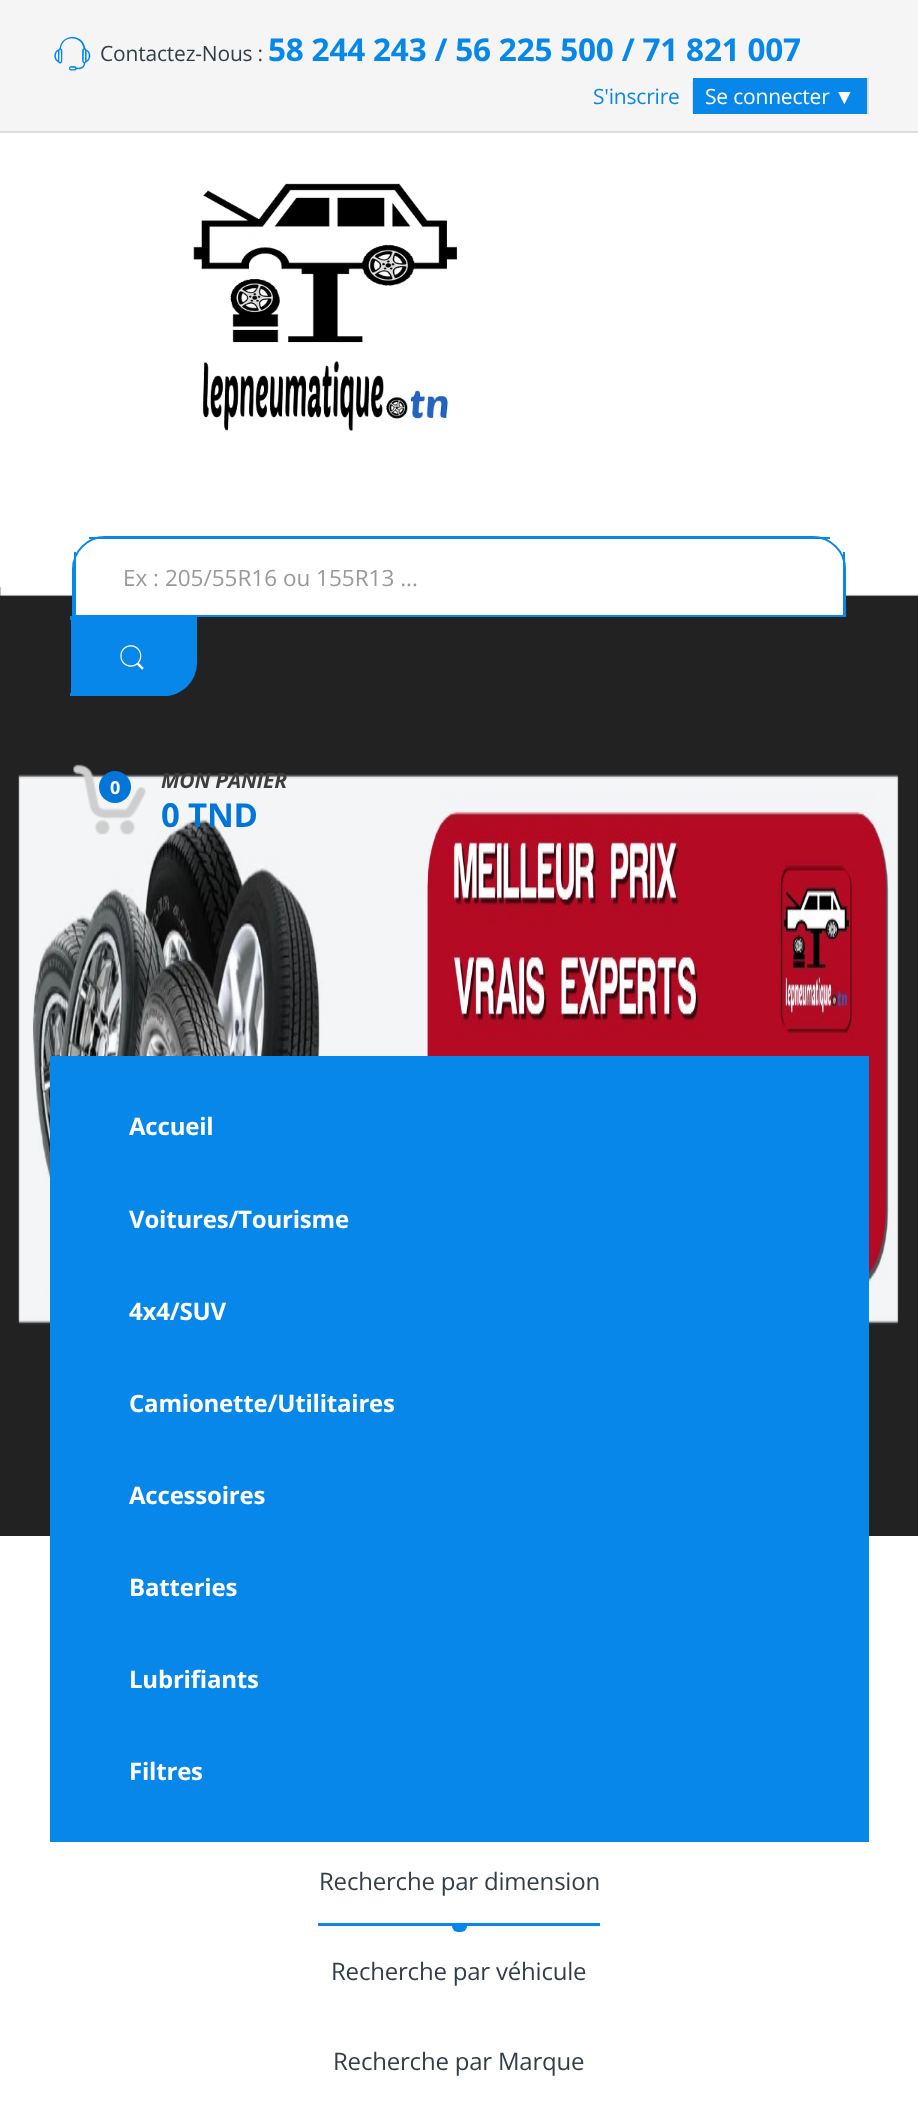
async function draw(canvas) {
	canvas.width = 918;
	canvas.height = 2112;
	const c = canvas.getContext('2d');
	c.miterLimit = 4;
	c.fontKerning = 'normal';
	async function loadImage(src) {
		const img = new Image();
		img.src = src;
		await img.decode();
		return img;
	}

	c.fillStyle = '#fff';
	c.fillRect(0, 0, 918, 2112);
	c.drawImage(await loadImage('img1.png'), 0, 586, 918, 950);
	c.fillStyle = '#f5f5f5';
	c.fillRect(0, 0, 918, 131);
	c.fillStyle = '#ddd';
	c.fillRect(0, 131, 918, 2);
	c.drawImage(await loadImage('img2.png'), 54, 36, 37, 35);
	c.letterSpacing = '-0.2px';
	c.font = '21px Open Sans';
	c.fillStyle = '#333e48';
	c.fillText('Contactez-Nous :', 100, 61);
	c.font = 'bold 31.5px Open Sans';
	c.fillStyle = '#0787ea';
	c.fillText('58 244 243 / 56 225 500 / 71 821 007', 268, 61);
	c.fillStyle = '#ddd';
	c.fillRect(692, 81, 1, 32);
	c.font = '21px Open Sans';
	c.fillStyle = '#0787ea';
	c.fillText('S\'inscrire', 593, 104);
	for (const [x, y, w, h, color] of [
		[869, 78, 1, 36, '#fff'],
		[693, 78, 174, 36, '#0787ea'],
		[867, 78, 2, 36, '#ddd'],
	]) {
		c.fillStyle = color;
		c.fillRect(x, y, w, h);
	}
	c.fillStyle = '#fff';
	c.fillText('Se connecter', 705, 104);
	c.font = '21px Liberation Sans';
	c.fillText('▼', 834, 104);
	c.drawImage(await loadImage('img3.png'), 193, 183, 265, 248);
	c.beginPath();
	c.roundRect(75, 539, 768, 76, [30, 30, 0, 0]);
	c.fill();
	c.beginPath();
	c.roundRect(73, 537, 772, 79, [32, 32, 0, 0]);
	c.strokeStyle = '#0787ea';
	c.lineWidth = 2;
	c.stroke();
	for (const [x, y, w, h, color] of [
		[89, 537, 741, 2, '#0787ea'],
		[843, 552, 2, 65, '#0787ea'],
		[74, 552, 2, 65, '#0787ea'],
	]) {
		c.fillStyle = color;
		c.fillRect(x, y, w, h);
	}
	c.letterSpacing = '0px';
	c.font = '22.5px Open Sans';
	c.fillStyle = '#999';
	c.fillText('Ex : 205/55R16 ou 155R13 ...', 123, 586);
	c.fillStyle = '#0787ea';
	c.beginPath();
	c.roundRect(71, 617, 126, 79, [0, 0, 33, 0]);
	c.fill();
	c.beginPath();
	c.moveTo(70, 616);
	c.lineTo(196, 616);
	c.lineTo(196, 663);
	c.bezierCurveTo(196, 681, 182, 696, 164, 696);
	c.lineTo(70, 696);
	c.closePath();
	c.moveTo(70, 620);
	c.lineTo(194, 620);
	c.lineTo(194, 663);
	c.bezierCurveTo(194, 680, 180, 693, 164, 693);
	c.lineTo(70, 693);
	c.closePath();
	c.fill('evenodd');
	c.drawImage(await loadImage('img4.png'), 120, 645, 24, 25);
	c.drawImage(await loadImage('img5.png'), 73, 764, 73, 71);
	c.fillStyle = '#0275d8';
	c.beginPath();
	c.arc(115, 787, 16, 0, 2 * Math.PI);
	c.fill();
	c.letterSpacing = '-0.2px';
	c.font = 'bold 18px Open Sans';
	c.fillStyle = '#fff';
	c.fillText('0', 110, 794);
	c.font = 'italic bold 21px Open Sans';
	c.fillStyle = '#3d3d3d';
	c.fillText('MON PANIER', 161, 788);
	c.font = 'bold 33px Open Sans';
	c.fillStyle = '#0275d8';
	c.fillText('0 TND', 161, 827);
	c.fillStyle = '#0787ea';
	c.fillRect(50, 1056, 819, 786);
	c.font = 'bold 24px Open Sans';
	c.fillStyle = '#fff';
	for (const [text, x, y] of [
		['Accueil', 129, 1135],
		['Voitures/Tourisme', 129, 1228],
		['4x4/SUV', 129, 1320],
		['Camionette/Utilitaires', 129, 1412],
		['Accessoires', 129, 1504],
		['Batteries', 129, 1596],
		['Lubrifiants', 129, 1688],
		['Filtres', 129, 1780],
	]) {
		c.fillText(text, x, y);
	}
	c.font = '24px Open Sans';
	c.fillStyle = '#333e48';
	c.fillText('Recherche par dimension', 319, 1890);
	c.fillStyle = '#0787ea';
	c.fillRect(318, 1923, 282, 3);
	c.beginPath();
	c.roundRect(452, 1926, 15, 6, [0, 0, 6, 6]);
	c.fill();
	c.fillStyle = '#333e48';
	c.fillText('Recherche par véhicule', 331, 1980);
	c.fillText('Recherche par Marque', 333, 2070);
}

draw(document.querySelector('canvas'));
